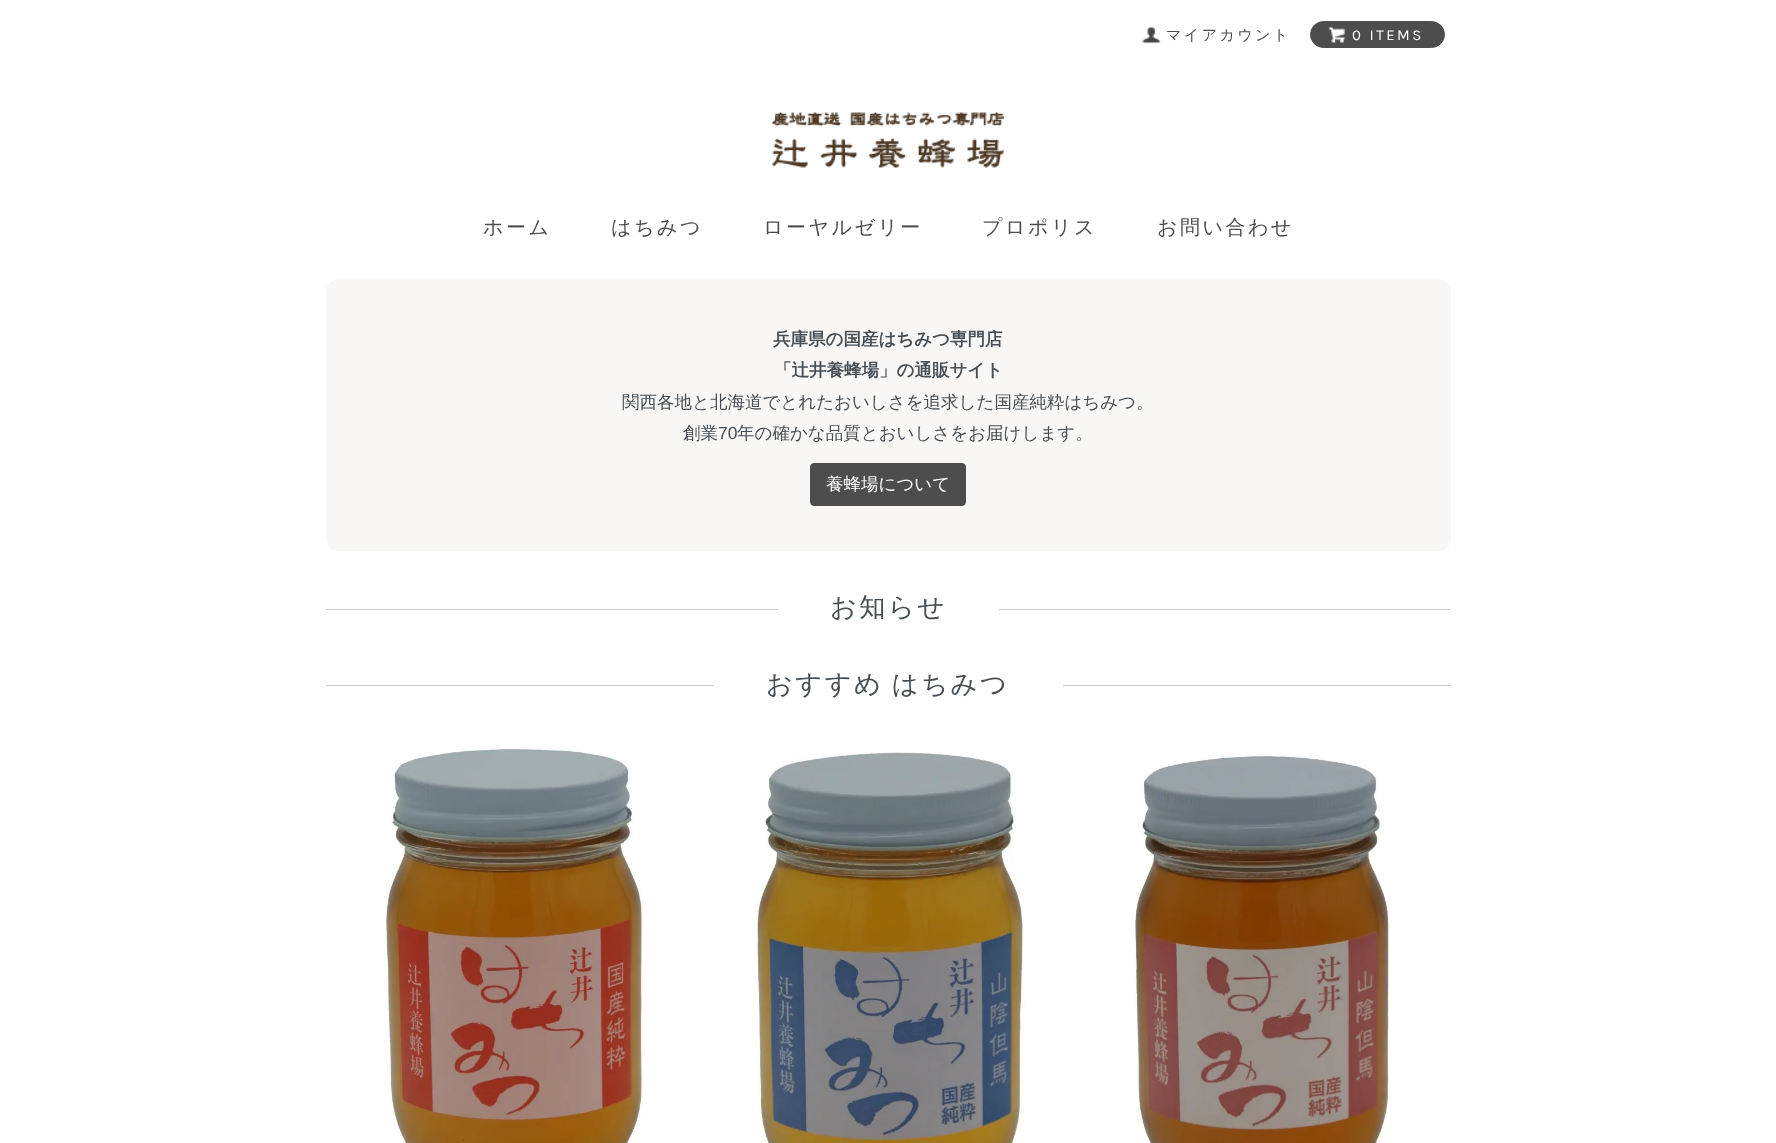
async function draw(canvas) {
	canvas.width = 1776;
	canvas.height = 1143;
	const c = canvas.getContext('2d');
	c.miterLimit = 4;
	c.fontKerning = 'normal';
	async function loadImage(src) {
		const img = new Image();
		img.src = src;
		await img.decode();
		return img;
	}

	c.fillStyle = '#fff';
	c.fillRect(0, 0, 1776, 1143);
	c.drawImage(await loadImage('img1.png'), 1142, 26, 19, 18);
	c.letterSpacing = '2.5px';
	c.font = '500 15px WenQuanYi Zen Hei';
	c.fillStyle = '#4d4d4d';
	c.fillText('マイアカウント', 1166, 40);
	c.beginPath();
	c.roundRect(1310.5, 21.5, 134, 26, 13);
	c.fill();
	c.strokeStyle = '#4d4d4d';
	c.stroke();
	c.drawImage(await loadImage('img2.png'), 1328, 26, 18, 18);
	c.font = '15px Karla';
	c.fillStyle = '#fff';
	c.fillText('0 ITEMS', 1352, 40);
	c.drawImage(await loadImage('img3.png'), 772, 112, 232, 56);
	c.font = '500 20px WenQuanYi Zen Hei';
	c.fillStyle = '#4d4d4d';
	for (const [text, x, y] of [
		['ホーム', 483, 234],
		['はちみつ', 611, 234],
		['ローヤルゼリー', 763, 234],
		['プロポリス', 982, 234],
		['お問い合わせ', 1157, 234],
	]) {
		c.fillText(text, x, y);
	}
	c.fillStyle = '#f9f7f6';
	c.beginPath();
	c.roundRect(326, 279, 1125, 272, 13);
	c.fill();
	c.letterSpacing = '0px';
	c.font = 'bold 17.5px WenQuanYi Zen Hei';
	c.fillStyle = '#464e54';
	c.fillText('兵庫県の国産はちみつ専門店', 773, 345);
	c.fillText('「辻井養蜂場」の通販サイト', 774, 376);
	c.font = '500 17.5px WenQuanYi Zen Hei';
	c.fillText('関西各地と北海道でとれたおいしさを追求した国産純粋はちみつ。', 622, 408);
	c.fillText('創業', 683, 439);
	c.font = '17.5px Liberation Sans';
	c.fillText('70', 718, 439);
	c.font = '500 17.5px WenQuanYi Zen Hei';
	c.fillText('年の確かな品質とおいしさをお届けします。', 737, 439);
	c.fillStyle = '#4d4d4d';
	c.beginPath();
	c.roundRect(810.5, 463.5, 155, 42, 3.5);
	c.fill();
	c.stroke();
	c.fillStyle = '#fff';
	c.fillText('養蜂場について', 826, 490);
	c.fillStyle = '#ccc';
	c.fillRect(326, 609, 1125, 1);
	c.fillStyle = '#fff';
	c.fillRect(778, 609, 221, 1);
	c.letterSpacing = '2.5px';
	c.font = '500 26.25px WenQuanYi Zen Hei';
	c.fillStyle = '#464e54';
	c.fillText('お知らせ', 830, 616);
	c.fillStyle = '#ccc';
	c.fillRect(326, 685, 1125, 1);
	c.fillStyle = '#fff';
	c.fillRect(714, 685, 349, 1);
	c.wordSpacing = '-2px';
	c.fillStyle = '#464e54';
	c.fillText('おすすめ はちみつ', 766, 693);
	c.drawImage(await loadImage('img4.png'), 386, 747, 257, 396);
	c.drawImage(await loadImage('img5.png'), 756, 752, 269, 391);
	c.drawImage(await loadImage('img6.png'), 1134, 754, 256, 389);
}

draw(document.querySelector('canvas'));
